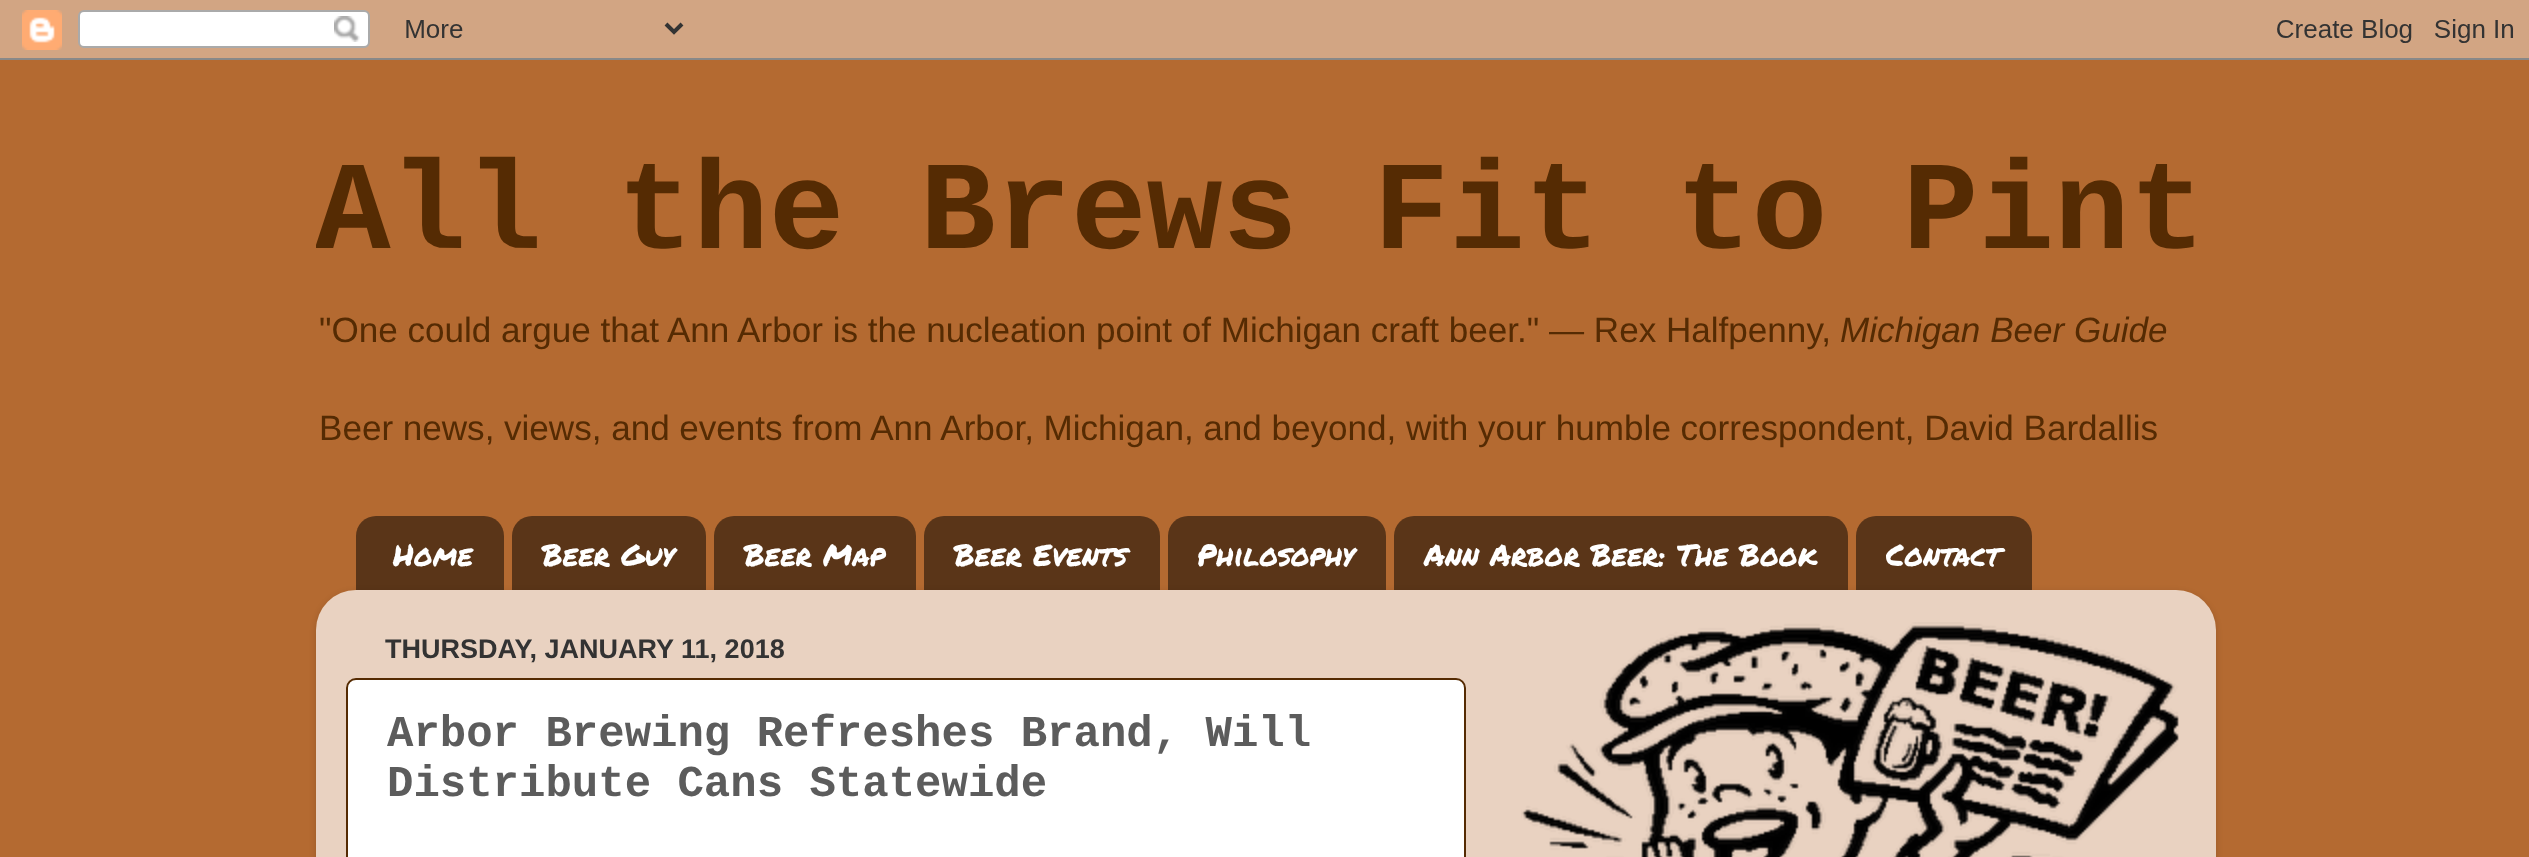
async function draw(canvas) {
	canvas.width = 2529;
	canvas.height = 857;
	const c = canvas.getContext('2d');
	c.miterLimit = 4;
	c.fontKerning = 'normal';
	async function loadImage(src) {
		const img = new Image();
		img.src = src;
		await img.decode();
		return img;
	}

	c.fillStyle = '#b46a31';
	c.fillRect(0, 0, 2529, 857);
	c.drawImage(await loadImage('img1.png'), 0, 0, 2529, 60);
	c.save();
	c.beginPath();
	c.rect(316, 100, 1900, 404);
	c.clip();
	c.font = 'bold 126px Liberation Mono';
	c.fillStyle = '#552b03';
	c.fillText('All the Brews Fit to Pint', 315, 248);
	c.restore();
	c.font = '35.1px Liberation Sans';
	c.fillStyle = '#552b03';
	c.fillText('"One could argue that Ann Arbor is the nucleation point of Michigan craft beer." — Rex Halfpenny,', 319, 342);
	c.font = 'italic 35.1px Liberation Sans';
	c.fillText('Michigan Beer Guide', 1840, 342);
	c.wordSpacing = '-0.1px';
	c.font = '35.1px Liberation Sans';
	c.fillText('Beer news, views, and events from Ann Arbor, Michigan, and beyond, with your humble correspondent, David Bardallis', 319, 440);
	c.drawImage(await loadImage('img2.png'), 356, 516, 148, 74);
	c.wordSpacing = '0px';
	c.font = '30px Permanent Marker';
	c.fillStyle = '#fff';
	c.fillText('Home', 393, 566);
	c.drawImage(await loadImage('img3.png'), 512, 516, 194, 74);
	c.fillText('Beer Guy', 542, 566);
	c.drawImage(await loadImage('img4.png'), 714, 516, 202, 74);
	c.fillText('Beer Map', 744, 566);
	c.drawImage(await loadImage('img5.png'), 924, 516, 236, 74);
	c.fillText('Beer Events', 954, 566);
	c.drawImage(await loadImage('img6.png'), 1168, 516, 218, 74);
	c.fillText('Philosophy', 1197, 566);
	c.drawImage(await loadImage('img7.png'), 1394, 516, 454, 74);
	c.fillText('Ann Arbor Beer: The Book', 1424, 566);
	c.drawImage(await loadImage('img8.png'), 1856, 516, 176, 74);
	c.fillText('Contact', 1886, 566);
	c.save();
	c.beginPath();
	c.moveTo(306, 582);
	c.lineTo(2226, 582);
	c.lineTo(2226, 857);
	c.lineTo(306, 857);
	c.closePath();
	c.moveTo(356, 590);
	c.lineTo(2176, 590);
	c.bezierCurveTo(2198, 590, 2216, 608, 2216, 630);
	c.lineTo(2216, 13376);
	c.lineTo(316, 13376);
	c.lineTo(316, 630);
	c.bezierCurveTo(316, 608, 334, 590, 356, 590);
	c.closePath();
	c.clip('evenodd');
	c.fillStyle = '#00000026';
	c.filter = 'blur(3px)';
	c.beginPath();
	c.roundRect(316, 592, 1900, 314, 40);
	c.fill();
	c.filter = 'none';
	c.restore();
	c.drawImage(await loadImage('img9.png'), 316, 590, 1900, 267);
	c.font = 'bold 27px Liberation Sans';
	c.fillStyle = '#333';
	c.fillText('THURSDAY, JANUARY 11, 2018', 385, 658);
	c.fillStyle = '#fff';
	c.beginPath();
	c.roundRect(347, 679, 1118, 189, 9);
	c.fill();
	c.strokeStyle = '#552b03';
	c.lineWidth = 2;
	c.stroke();
	c.font = 'bold 44px Liberation Mono';
	c.fillStyle = '#5c5c5c';
	c.fillText('Arbor Brewing Refreshes Brand, Will', 387, 746);
	c.fillText('Distribute Cans Statewide', 387, 796);
	c.drawImage(await loadImage('img10.png'), 1521, 622, 658, 235);
}

draw(document.querySelector('canvas'));
